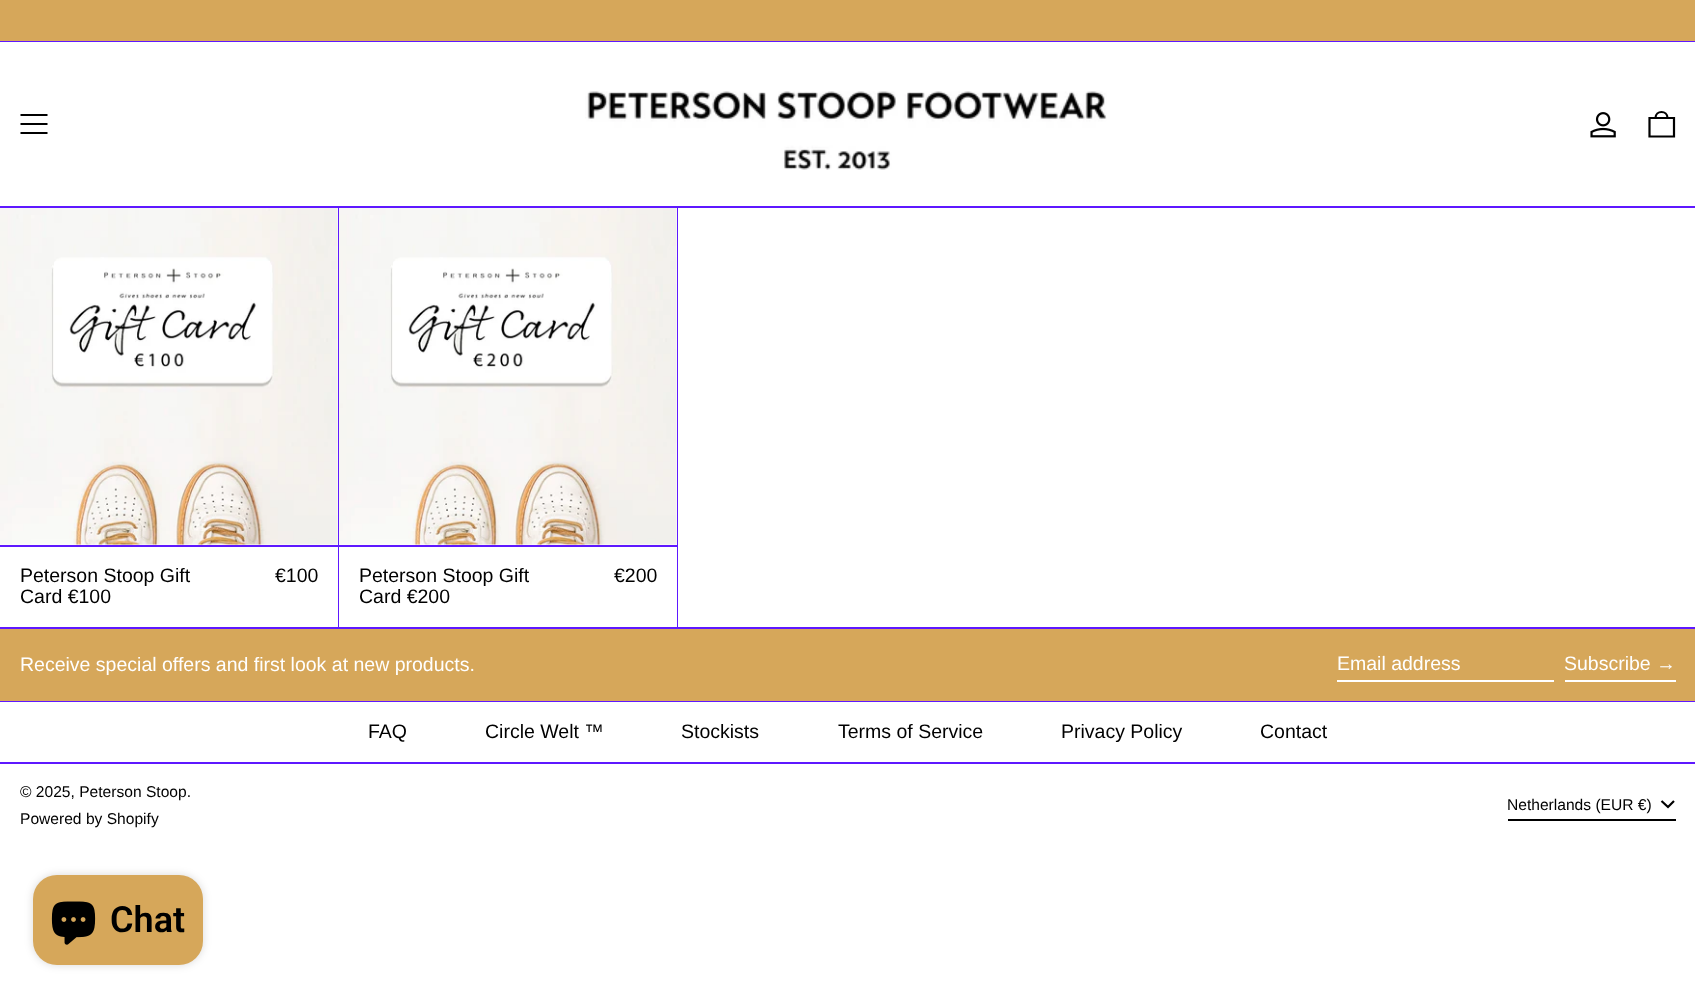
async function draw(canvas) {
	canvas.width = 1695;
	canvas.height = 996;
	const c = canvas.getContext('2d');
	c.miterLimit = 4;
	c.fontKerning = 'normal';
	async function loadImage(src) {
		const img = new Image();
		img.src = src;
		await img.decode();
		return img;
	}

	c.fillStyle = '#fff';
	c.fillRect(0, 0, 1695, 996);
	for (const [x, y, w, h, color] of [
		[0, 0, 1695, 41, '#d6a75a'],
		[0, 41, 1695, 1, '#5e18ff'],
		[0, 206, 1695, 2, '#5e18ff'],
	]) {
		c.fillStyle = color;
		c.fillRect(x, y, w, h);
	}
	c.beginPath();
	c.moveTo(20.5, 115);
	c.lineTo(47.5, 115);
	c.moveTo(20.5, 124);
	c.lineTo(47.5, 124);
	c.moveTo(20.5, 133);
	c.lineTo(47.5, 133);
	c.strokeStyle = '#000';
	c.lineWidth = 2.2;
	c.stroke();
	c.drawImage(await loadImage('img1.png'), 585, 91, 522, 79);
	c.drawImage(await loadImage('img2.png'), 1590, 112, 26, 26);
	c.beginPath();
	c.moveTo(1649.5, 118);
	c.lineTo(1674, 118);
	c.lineTo(1674, 136.5);
	c.lineTo(1649.5, 136.5);
	c.closePath();
	c.moveTo(1667.5, 118);
	c.bezierCurveTo(1667.5, 110, 1655.5, 110, 1655.5, 118);
	c.stroke();
	for (const [x, y, w, h, color] of [
		[0, 627, 1695, 2, '#5e18ff'],
		[338, 208, 340, 419, '#5e18ff'],
		[0, 545, 338, 2, '#5e18ff'],
	]) {
		c.fillStyle = color;
		c.fillRect(x, y, w, h);
	}
	c.drawImage(await loadImage('img3.png'), 0, 208, 338, 337);
	c.font = '19.5px Liberation Sans';
	c.fillStyle = '#000';
	for (const [text, x, y] of [
		['Peterson Stoop Gift', 20, 582],
		['Card €100', 20, 603],
		['€100', 275, 582],
	]) {
		c.fillText(text, x, y);
	}
	c.fillStyle = '#fff';
	c.fillRect(339, 208, 338, 419);
	c.fillStyle = '#5e18ff';
	c.fillRect(339, 545, 338, 2);
	c.drawImage(await loadImage('img4.png'), 339, 208, 338, 337);
	c.fillStyle = '#000';
	for (const [text, x, y] of [
		['Peterson Stoop Gift', 359, 582],
		['Card €200', 359, 603],
		['€200', 614, 582],
	]) {
		c.fillText(text, x, y);
	}
	c.fillStyle = '#d6a75a';
	c.fillRect(0, 629, 1695, 72);
	c.fillStyle = '#5e18ff';
	c.fillRect(0, 701, 1695, 1);
	c.fillStyle = '#fff';
	c.fillText('Receive special offers and first look at new products.', 20, 671);
	c.fillRect(1337, 680, 217, 2);
	c.fillText('Email address', 1337, 670);
	c.fillRect(1565, 680, 111, 2);
	c.fillText('Subscribe →', 1564, 670);
	c.fillStyle = '#5e18ff';
	c.fillRect(0, 762, 1695, 2);
	c.fillStyle = '#000';
	for (const [text, x, y] of [
		['FAQ', 368, 738],
		['Circle Welt ™', 485, 738],
		['Stockists', 681, 738],
		['Terms of Service', 838, 738],
		['Privacy Policy', 1061, 738],
		['Contact', 1260, 738],
	]) {
		c.fillText(text, x, y);
	}
	c.font = '15.6px Liberation Sans';
	c.fillText('© 2025, Peterson Stoop.', 20, 797);
	c.fillText('Powered by Shopify', 20, 824);
	c.fillRect(1508, 819, 168, 2);
	c.fillText('Netherlands (EUR €)', 1507, 810);
	c.beginPath();
	c.moveTo(1661.5, 801);
	c.lineTo(1668, 807);
	c.lineTo(1674, 801);
	c.stroke();
	c.fillStyle = '#00000026';
	c.filter = 'blur(4px)';
	c.beginPath();
	c.roundRect(33, 875, 170, 90, 24);
	c.fill();
	c.filter = 'none';
	c.fillStyle = '#d6a75a';
	c.beginPath();
	c.roundRect(33, 875, 170, 90, 24);
	c.fill();
	c.drawImage(await loadImage('img5.png'), 51, 901, 45, 44);
	c.font = '600 36px Roboto';
	c.fillStyle = '#000';
	c.fillText('Chat', 110, 932);
}

draw(document.querySelector('canvas'));
